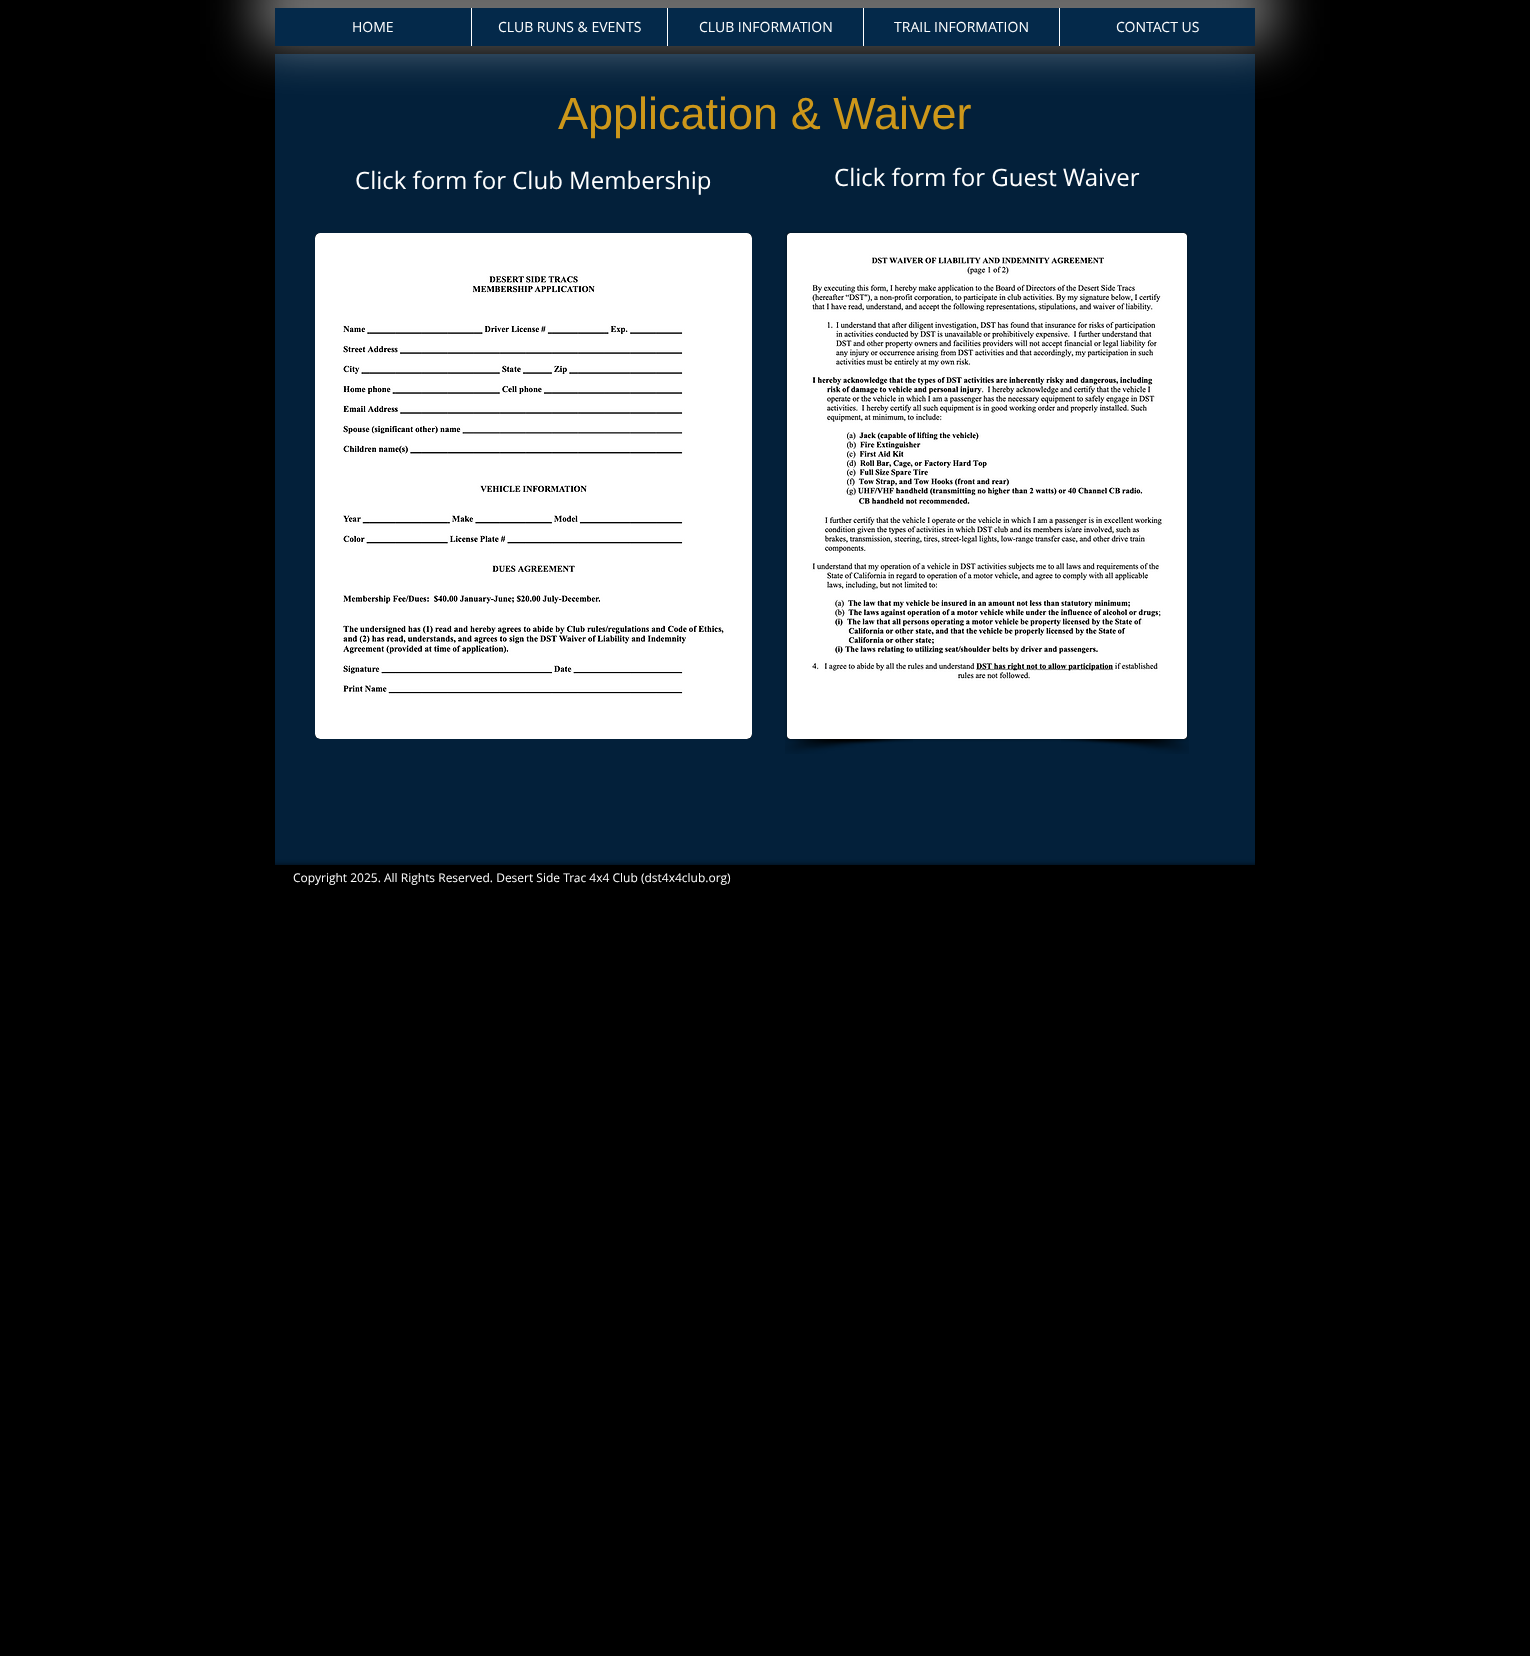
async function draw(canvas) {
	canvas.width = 1530;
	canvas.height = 1656;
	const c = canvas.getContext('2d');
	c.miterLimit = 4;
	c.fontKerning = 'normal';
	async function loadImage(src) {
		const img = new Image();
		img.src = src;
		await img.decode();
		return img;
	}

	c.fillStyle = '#000';
	c.fillRect(0, 0, 1530, 1656);
	c.fillStyle = '#03203a';
	c.fillRect(275, 54, 980, 811);
	c.fillStyle = '#ffffff78';
	c.filter = 'blur(25px)';
	c.beginPath();
	c.rect(257, -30, 1016, 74);
	c.fill();
	c.filter = 'none';
	c.fillStyle = '#04294a';
	c.fillRect(275, 8, 980, 38);
	c.font = '14px Open Sans';
	c.fillStyle = '#fff';
	c.fillText('HOME', 352, 32);
	c.fillRect(471, 8, 1, 38);
	c.fillText('CLUB RUNS & EVENTS', 498, 32);
	c.fillRect(667, 8, 1, 38);
	c.fillText('CLUB INFORMATION', 699, 32);
	c.fillRect(863, 8, 1, 38);
	c.fillText('TRAIL INFORMATION', 894, 32);
	c.fillRect(1059, 8, 1, 38);
	c.fillText('CONTACT US', 1116, 32);
	c.font = '45px Liberation Sans';
	c.fillStyle = '#cd971a';
	c.fillText('Application & Waiver', 558, 129);
	c.font = '24px Open Sans';
	c.fillStyle = '#fff';
	c.fillText('Click form for Club Membership', 355, 189);
	c.fillText('Click form for Guest Waiver', 834, 186);
	c.fillStyle = '#000';
	c.beginPath();
	c.roundRect(315, 233, 437, 506, 5);
	c.fill();
	c.drawImage(await loadImage('img1.png'), 315, 233, 437, 506);
	c.fillStyle = '#00000080';
	c.filter = 'blur(1.5px)';
	c.beginPath();
	c.roundRect(787, 233, 400, 506, 3);
	c.fill();
	c.filter = 'none';
	c.fillStyle = '#000';
	c.beginPath();
	c.roundRect(787, 233, 400, 506, 3);
	c.fill();
	c.drawImage(await loadImage('img2.png'), 787, 233, 400, 506);
	c.drawImage(await loadImage('img3.png'), 785, 739, 128, 15);
	c.drawImage(await loadImage('img4.png'), 1061, 739, 128, 15);
	c.save();
	c.beginPath();
	c.moveTo(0, 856);
	c.lineTo(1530, 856);
	c.lineTo(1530, 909);
	c.lineTo(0, 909);
	c.closePath();
	c.moveTo(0, 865);
	c.lineTo(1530, 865);
	c.lineTo(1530, 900);
	c.lineTo(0, 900);
	c.closePath();
	c.clip('evenodd');
	c.fillStyle = '#000000b3';
	c.filter = 'blur(2.5px)';
	c.beginPath();
	c.rect(0, 865, 1530, 35);
	c.fill();
	c.filter = 'none';
	c.restore();
	c.font = '12px Open Sans';
	c.fillStyle = '#fff';
	c.fillText('Copyright 2025. All Rights Reserved. Desert Side Trac 4x4 Club (dst4x4club.org)', 293, 882);
}

draw(document.querySelector('canvas'));
